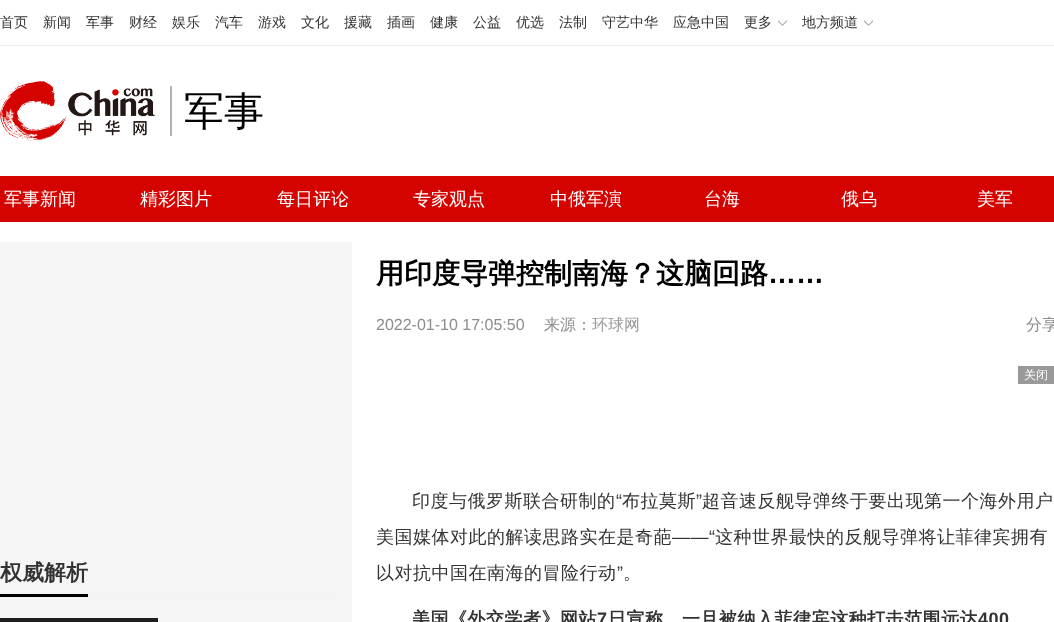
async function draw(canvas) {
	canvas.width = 1054;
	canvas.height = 622;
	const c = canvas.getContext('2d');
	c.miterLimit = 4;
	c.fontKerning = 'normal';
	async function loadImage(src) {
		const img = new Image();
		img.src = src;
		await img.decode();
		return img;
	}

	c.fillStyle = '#fff';
	c.fillRect(0, 0, 1054, 622);
	c.fillStyle = '#eee';
	c.fillRect(0, 45, 1054, 1);
	c.font = '500 14px WenQuanYi Zen Hei';
	c.fillStyle = '#333';
	for (const [text, x, y] of [
		['首页', 0, 27],
		['新闻', 43, 27],
		['军事', 86, 27],
		['财经', 129, 27],
		['娱乐', 172, 27],
		['汽车', 215, 27],
		['游戏', 258, 27],
		['文化', 301, 27],
		['援藏', 344, 27],
		['插画', 387, 27],
		['健康', 430, 27],
		['公益', 473, 27],
		['优选', 516, 27],
		['法制', 559, 27],
		['守艺中华', 602, 27],
		['应急中国', 673, 27],
		['更多', 744, 27],
	]) {
		c.fillText(text, x, y);
	}
	c.drawImage(await loadImage('img1.png'), 778, 20, 9, 6);
	c.fillText('地方频道', 802, 27);
	c.drawImage(await loadImage('img1.png'), 864, 20, 9, 6);
	c.drawImage(await loadImage('img2.png'), 0, 81, 156, 60);
	c.fillStyle = '#b2b2b2';
	c.fillRect(170, 86, 2, 50);
	c.font = '500 40px WenQuanYi Zen Hei';
	c.fillStyle = '#000';
	c.fillText('军事', 184, 125);
	c.fillStyle = '#d40300';
	c.fillRect(0, 176, 1054, 46);
	c.font = '500 18px WenQuanYi Zen Hei';
	c.fillStyle = '#fff';
	for (const [text, x, y] of [
		['军事新闻', 4, 205],
		['精彩图片', 140, 205],
		['每日评论', 277, 205],
		['专家观点', 413, 205],
		['中俄军演', 550, 205],
		['台海', 704, 205],
		['俄乌', 841, 205],
		['美军', 977, 205],
	]) {
		c.fillText(text, x, y);
	}
	c.fillStyle = '#f6f5f5';
	c.fillRect(0, 242, 352, 380);
	c.fillStyle = '#f2f2f2';
	c.fillRect(0, 597, 336, 1);
	c.font = 'bold 22px WenQuanYi Zen Hei';
	c.fillStyle = '#333';
	c.fillText('权威解析', 0, 580);
	c.fillStyle = '#000';
	c.fillRect(0, 594, 88, 3);
	c.fillStyle = '#1e1e1e';
	c.fillRect(0, 618, 158, 4);
	c.font = 'bold 28px WenQuanYi Zen Hei';
	c.fillStyle = '#000';
	c.fillText('用印度导弹控制南海？这脑回路', 376, 283);
	c.font = 'bold 28px Liberation Sans';
	c.fillText('……', 768, 283);
	c.font = '16px Liberation Sans';
	c.fillStyle = '#8d8d8d';
	c.fillText('2022-01-10 17:05:50', 376, 330);
	c.font = '500 16px WenQuanYi Zen Hei';
	c.fillText('来源：', 544, 330);
	c.fillStyle = '#999';
	c.fillText('环球网', 592, 330);
	c.fillStyle = '#8d8d8d';
	c.fillText('分享', 1026, 330);
	c.letterSpacing = '0.5px';
	c.font = '500 18px WenQuanYi Zen Hei';
	c.fillStyle = '#333';
	c.fillText('印度与俄罗斯联合研制的', 412, 507);
	c.font = '18px Liberation Sans';
	c.fillText('“', 616, 507);
	c.font = '500 18px WenQuanYi Zen Hei';
	c.fillText('布拉莫斯', 622, 507);
	c.font = '18px Liberation Sans';
	c.fillText('”', 696, 507);
	c.font = '500 18px WenQuanYi Zen Hei';
	c.fillText('超音速反舰导弹终于要出现第一个海外用户', 702, 507);
	c.fillText('美国媒体对此的解读思路实在是奇葩', 376, 543);
	c.font = '18px Liberation Sans';
	c.fillText('——“', 672, 543);
	c.font = '500 18px WenQuanYi Zen Hei';
	c.fillText('这种世界最快的反舰导弹将让菲律宾拥有', 715, 543);
	c.fillText('以对抗中国在南海的冒险行动', 376, 579);
	c.font = '18px Liberation Sans';
	c.fillText('”', 617, 579);
	c.font = '500 18px WenQuanYi Zen Hei';
	c.fillText('。', 623, 579);
	c.font = 'bold 18px WenQuanYi Zen Hei';
	c.fillText('美国《外交学者》网站', 412, 625);
	c.font = 'bold 18px Liberation Sans';
	c.fillText('7', 597, 625);
	c.font = 'bold 18px WenQuanYi Zen Hei';
	c.fillText('日宣称，一旦被纳入菲律宾这种打击范围远达', 608, 625);
	c.font = 'bold 18px Liberation Sans';
	c.fillText('400', 978, 625);
	c.fillStyle = '#999';
	c.fillRect(1018, 366, 36, 18);
	c.letterSpacing = '0px';
	c.font = '500 12px WenQuanYi Zen Hei';
	c.fillStyle = '#fff';
	c.fillText('关闭', 1024, 379);
}

draw(document.querySelector('canvas'));
